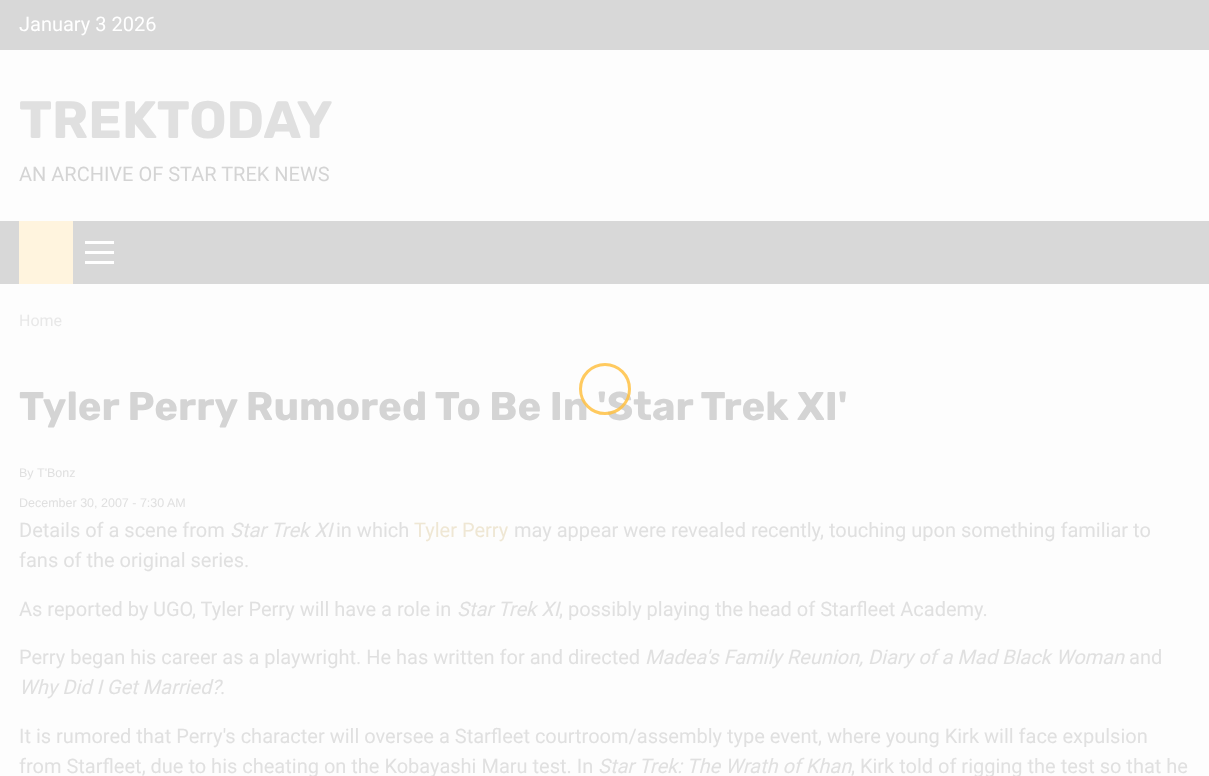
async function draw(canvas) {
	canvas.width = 1209;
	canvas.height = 776;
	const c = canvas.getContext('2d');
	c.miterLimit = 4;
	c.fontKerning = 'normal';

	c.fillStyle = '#fdfdfd';
	c.fillRect(0, 0, 1209, 776);
	c.fillStyle = '#d8d8d8';
	c.fillRect(0, 0, 1209, 50);
	c.font = '20px Roboto';
	c.fillStyle = '#fff';
	c.fillText('January 3 2026', 19, 31);
	c.font = 'bold 52.5px Rubik';
	c.fillStyle = '#e0e0e0';
	c.fillText('TREKTODAY', 19, 138);
	c.font = '20px Roboto';
	c.fillStyle = '#d4d4d4';
	c.fillText('AN ARCHIVE OF STAR TREK NEWS', 19, 181);
	for (const [x, y, w, h, color] of [
		[0, 221, 1209, 63, '#d8d8d8'],
		[19, 221, 54, 63, '#fff4de'],
		[85, 251, 29, 3, '#fff'],
		[85, 241, 29, 3, '#fff'],
		[85, 261, 29, 3, '#fff'],
	]) {
		c.fillStyle = color;
		c.fillRect(x, y, w, h);
	}
	c.font = '16px Roboto';
	c.fillStyle = '#e8e8e8';
	c.fillText('Home', 19, 326);
	c.font = 'bold 40px Rubik';
	c.fillStyle = '#d4d4d4';
	c.fillText('Tyler Perry Rumored To Be In \'Star Trek XI\'', 19, 420);
	c.font = '12.5px Liberation Sans';
	c.fillStyle = '#e0e0e0';
	for (const [text, x, y] of [
		['By', 19, 477],
		['T\'Bonz', 37, 477],
		['December 30, 2007 - 7:30 AM', 19, 507],
	]) {
		c.fillText(text, x, y);
	}
	c.font = '20px Roboto';
	c.fillText('Details of a scene from', 19, 537);
	c.font = 'italic 20px Roboto';
	c.fillText('Star Trek XI', 230, 537);
	c.font = '20px Roboto';
	c.fillText('in which', 336, 537);
	c.fillStyle = '#efe7d4';
	c.fillText('Tyler Perry', 414, 537);
	c.fillStyle = '#e0e0e0';
	for (const [text, x, y] of [
		['may appear were revealed recently, touching upon something familiar to', 514, 537],
		['fans of the original series.', 19, 567],
		['As reported by', 19, 616],
		['UGO', 153, 616],
		[', Tyler Perry will have a role in', 192, 616],
	]) {
		c.fillText(text, x, y);
	}
	c.font = 'italic 20px Roboto';
	c.fillText('Star Trek XI', 457, 616);
	c.font = '20px Roboto';
	c.fillText(', possibly playing the head of Starfleet Academy.', 559, 616);
	c.fillText('Perry began his career as a playwright. He has written for and directed', 19, 664);
	c.font = 'italic 20px Roboto';
	c.fillText('Madea\'s Family Reunion, Diary of a Mad Black Woman', 645, 664);
	c.font = '20px Roboto';
	c.fillText('and', 1129, 664);
	c.font = 'italic 20px Roboto';
	c.fillText('Why Did I Get Married?', 19, 694);
	c.font = '20px Roboto';
	for (const [text, x, y] of [
		['.', 220, 694],
		['It is rumored that Perry\'s character will oversee a Starfleet courtroom/assembly type event, where young Kirk will face expulsion', 19, 743],
		['from Starfleet, due to his cheating on the Kobayashi Maru test. In', 19, 773],
	]) {
		c.fillText(text, x, y);
	}
	c.font = 'italic 20px Roboto';
	c.fillText('Star Trek: The Wrath of Khan', 598, 773);
	c.font = '20px Roboto';
	c.fillText(', Kirk told of rigging the test so that he', 851, 773);
	c.beginPath();
	c.arc(605, 389, 24.5, 0, 2 * Math.PI);
	c.strokeStyle = '#ffbf3fd4';
	c.lineWidth = 3;
	c.stroke();
}

draw(document.querySelector('canvas'));
